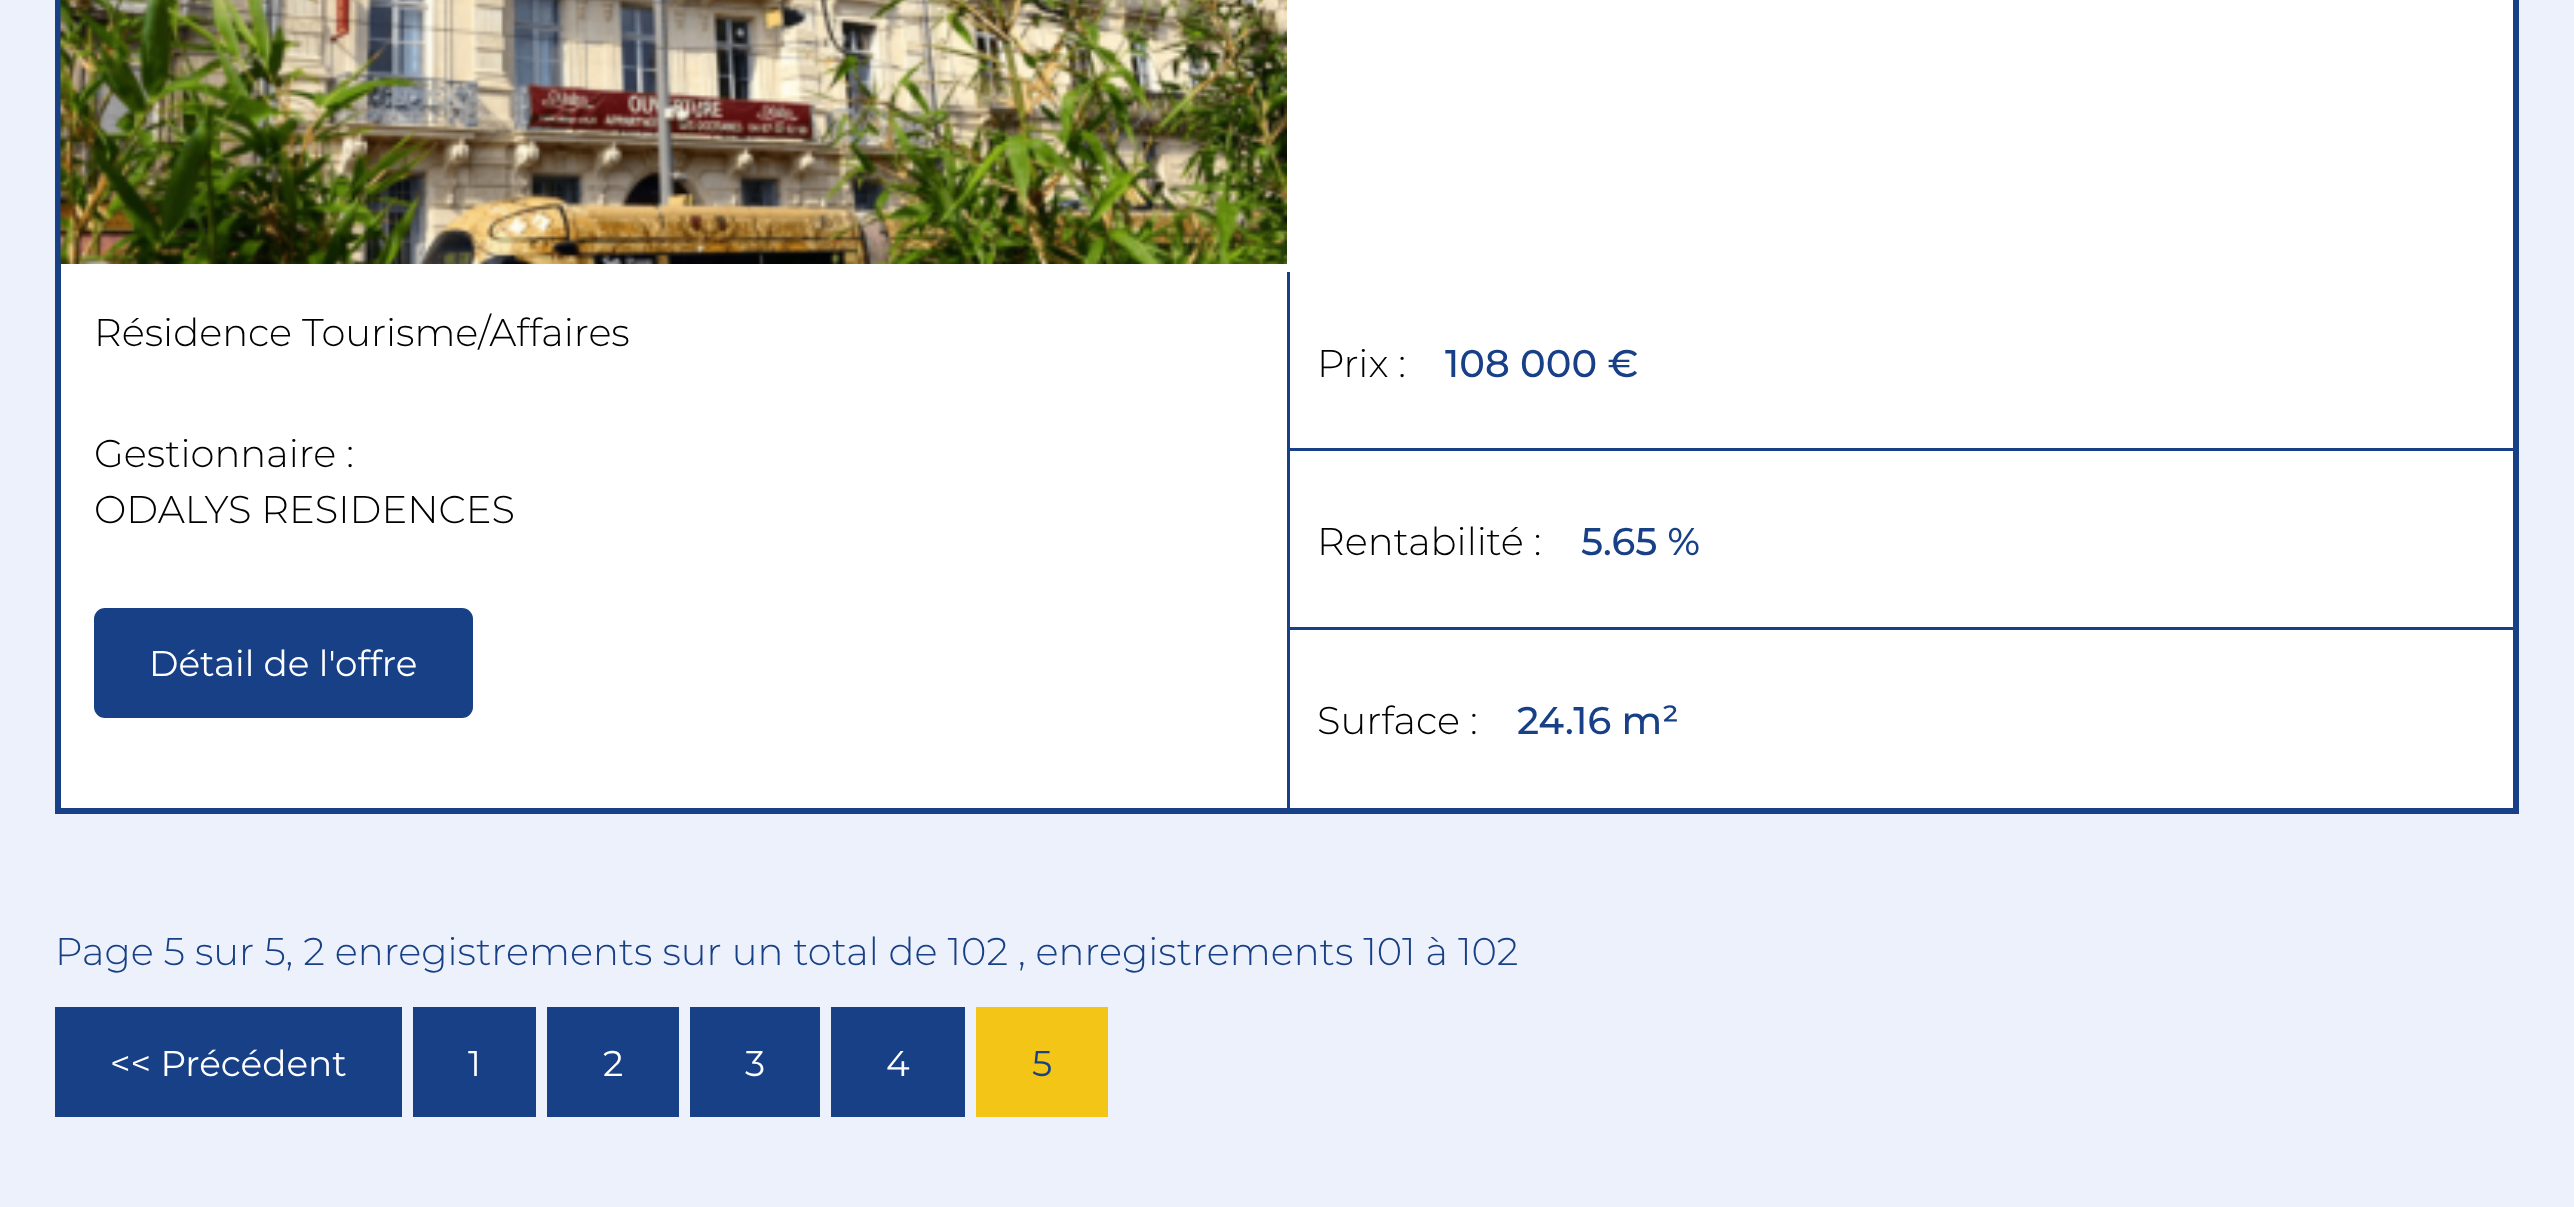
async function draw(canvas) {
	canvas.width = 2574;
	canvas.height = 1207;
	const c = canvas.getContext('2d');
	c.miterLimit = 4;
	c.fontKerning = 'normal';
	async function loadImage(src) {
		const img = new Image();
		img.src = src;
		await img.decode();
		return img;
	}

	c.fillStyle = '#edf1fb';
	c.fillRect(0, 0, 2574, 1207);
	c.fillStyle = '#fff';
	c.beginPath();
	c.rect(58, -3, 2458, 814);
	c.fill();
	c.strokeStyle = '#174087';
	c.lineWidth = 6;
	c.stroke();
	c.drawImage(await loadImage('img1.png'), 60, 0, 1227, 264);
	c.font = '300 38.5px Montserrat';
	c.fillStyle = '#000';
	for (const [text, x, y] of [
		['Résidence Tourisme/Affaires', 94, 346],
		['Gestionnaire :', 94, 467],
		['ODALYS RESIDENCES', 94, 523],
	]) {
		c.fillText(text, x, y);
	}
	c.fillStyle = '#174087';
	c.beginPath();
	c.roundRect(94, 608, 379, 110, 11);
	c.fill();
	c.font = '35.75px Montserrat';
	c.fillStyle = '#fff';
	c.fillText('Détail de l\'offre', 149, 676);
	c.fillStyle = '#174087';
	c.fillRect(1287, 448, 1227, 3);
	c.fillRect(1287, 272, 3, 179);
	c.font = '300 38.5px Montserrat';
	c.fillStyle = '#000';
	c.fillText('Prix :', 1317, 377);
	c.font = '500 38.5px Montserrat';
	c.fillStyle = '#174087';
	c.fillText('108 000 €', 1445, 377);
	c.fillRect(1287, 627, 1227, 3);
	c.fillRect(1287, 451, 3, 358);
	c.font = '300 38.5px Montserrat';
	c.fillStyle = '#000';
	c.fillText('Rentabilité :', 1317, 555);
	c.font = '500 38.5px Montserrat';
	c.fillStyle = '#174087';
	c.fillText('5.65 %', 1581, 555);
	c.font = '300 38.5px Montserrat';
	c.fillStyle = '#000';
	c.fillText('Surface :', 1317, 734);
	c.font = '500 38.5px Montserrat';
	c.fillStyle = '#174087';
	c.fillText('24.16 m²', 1517, 734);
	c.font = '300 38.5px Montserrat';
	c.fillText('Page 5 sur 5, 2 enregistrements sur un total de 102 , enregistrements 101 à 102', 55, 965);
	c.fillRect(55, 1007, 347, 110);
	c.font = '35.75px Montserrat';
	c.fillStyle = '#fff';
	c.fillText('<< Précédent', 110, 1076);
	c.fillStyle = '#174087';
	c.fillRect(413, 1007, 123, 110);
	c.fillStyle = '#fff';
	c.fillText('1', 468, 1076);
	c.fillStyle = '#174087';
	c.fillRect(547, 1007, 132, 110);
	c.fillStyle = '#fff';
	c.fillText('2', 603, 1076);
	c.fillStyle = '#174087';
	c.fillRect(690, 1007, 130, 110);
	c.fillStyle = '#fff';
	c.fillText('3', 745, 1076);
	c.fillStyle = '#174087';
	c.fillRect(831, 1007, 134, 110);
	c.fillStyle = '#fff';
	c.fillText('4', 886, 1076);
	c.fillStyle = '#f2c517';
	c.fillRect(976, 1007, 132, 110);
	c.fillStyle = '#174087';
	c.fillText('5', 1032, 1076);
}

draw(document.querySelector('canvas'));
